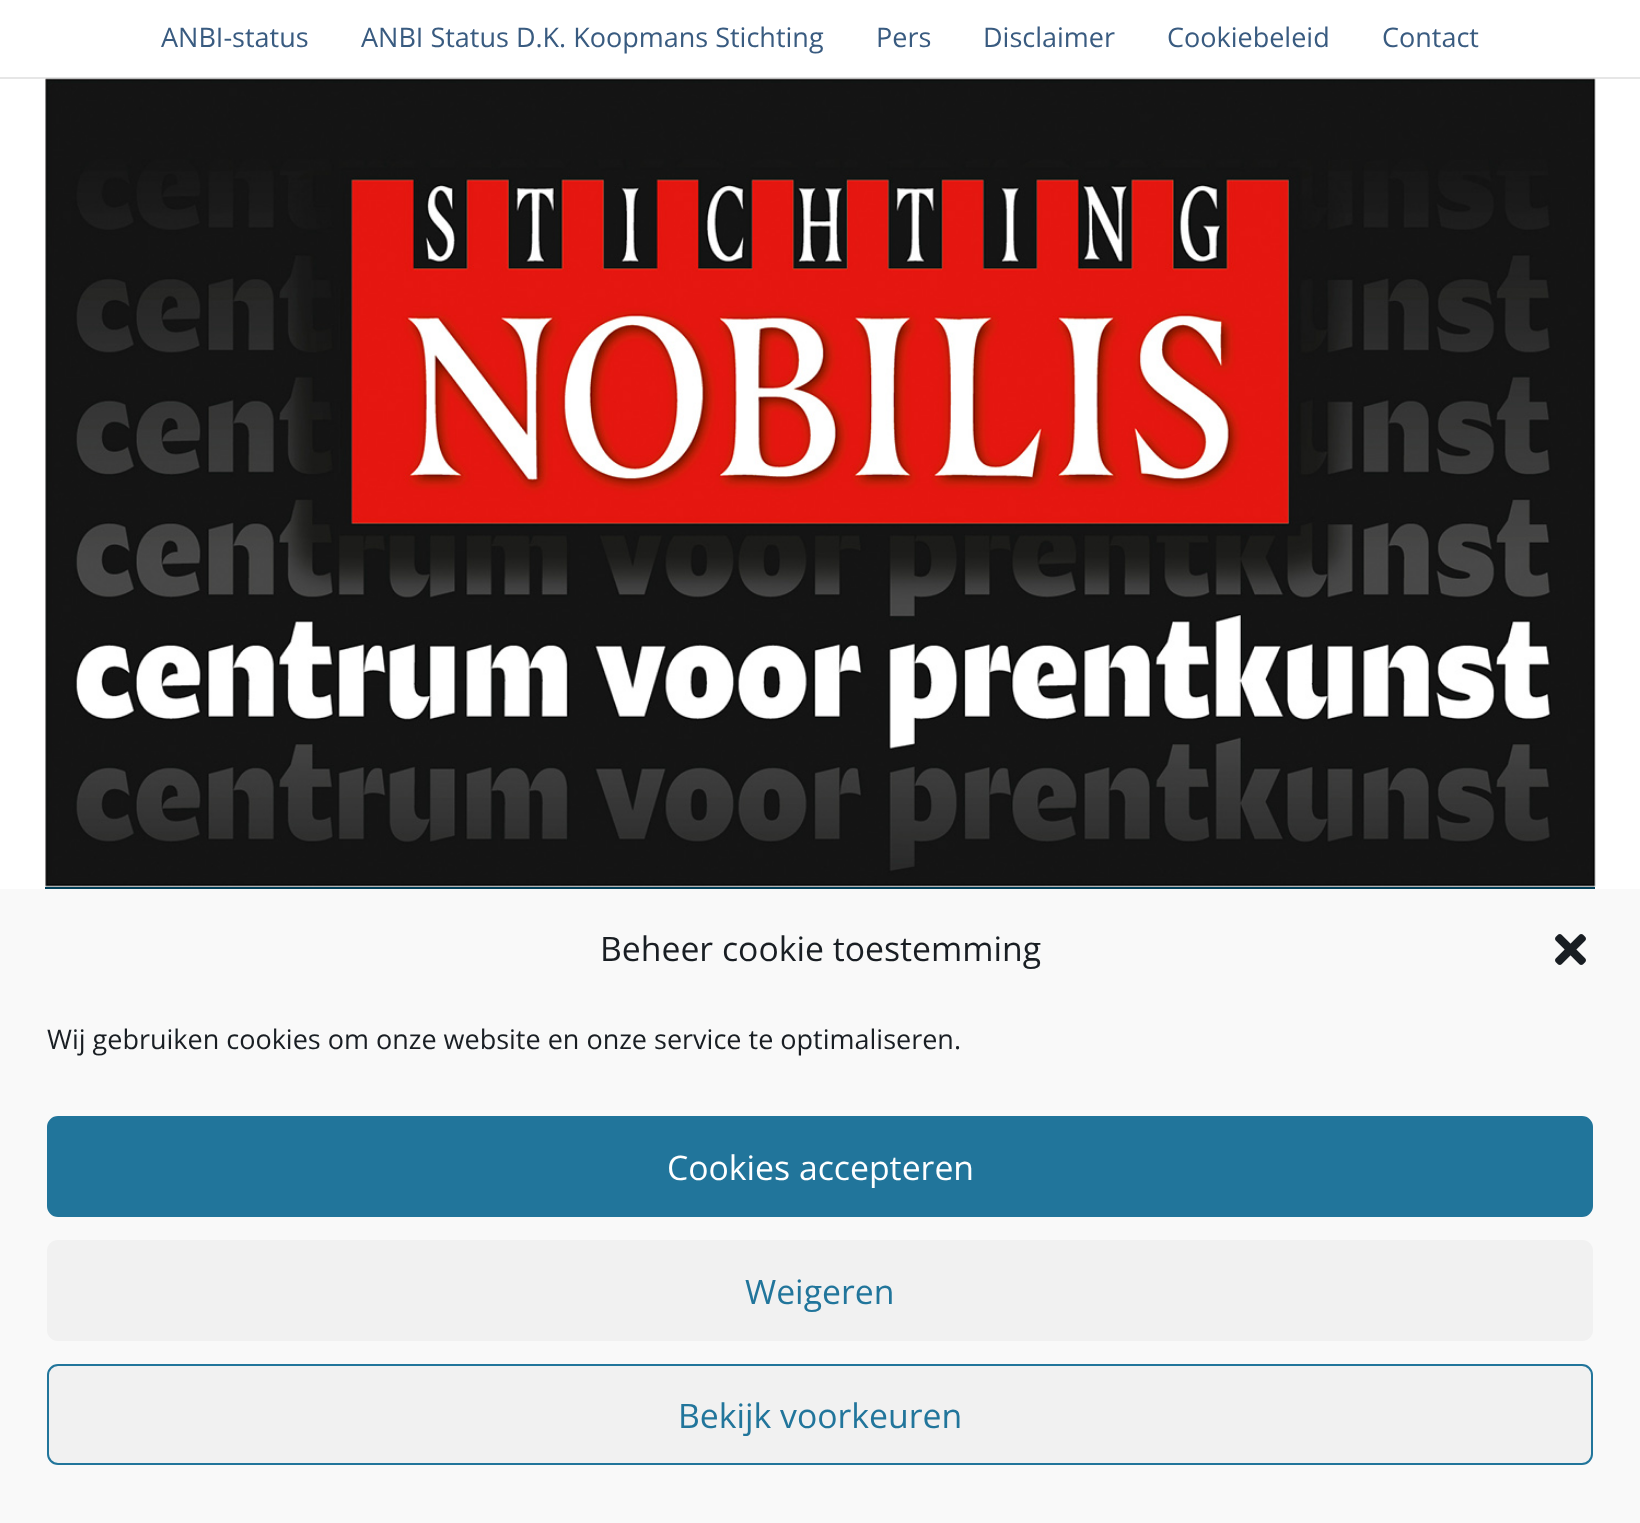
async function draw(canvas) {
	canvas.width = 1640;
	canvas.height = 1523;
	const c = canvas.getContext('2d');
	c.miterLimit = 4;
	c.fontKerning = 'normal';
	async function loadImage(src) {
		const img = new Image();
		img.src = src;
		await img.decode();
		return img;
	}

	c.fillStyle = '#fff';
	c.fillRect(0, 0, 1640, 1523);
	c.fillStyle = '#e6e6e6';
	c.fillRect(0, 77, 1640, 2);
	c.font = '27px Open Sans';
	c.fillStyle = '#395b80';
	for (const [text, x, y] of [
		['ANBI-status', 161, 47],
		['ANBI Status D.K. Koopmans Stichting', 361, 47],
		['Pers', 876, 47],
		['Disclaimer', 983, 47],
		['Cookiebeleid', 1167, 47],
		['Contact', 1382, 47],
	]) {
		c.fillText(text, x, y);
	}
	c.drawImage(await loadImage('img1.png'), 45, 78, 1551, 809);
	c.strokeStyle = '#013f58';
	c.lineWidth = 2;
	c.strokeRect(46, 888, 1548, 106);
	c.fillStyle = '#f9f9f9';
	c.fillRect(0, 889, 1640, 634);
	c.font = '33.75px Open Sans';
	c.fillStyle = '#191e23';
	c.fillText('Beheer cookie toestemming', 600, 961);
	c.drawImage(await loadImage('img2.png'), 1555, 934, 31, 31);
	c.font = '27px Open Sans';
	c.fillText('Wij gebruiken cookies om onze website en onze service te optimaliseren.', 47, 1049);
	c.fillStyle = '#21759b';
	c.beginPath();
	c.roundRect(48, 1117, 1544, 99, 10);
	c.fill();
	c.strokeStyle = '#21759b';
	c.stroke();
	c.font = '33.75px Open Sans';
	c.fillStyle = '#fff';
	c.fillText('Cookies accepteren', 667, 1180);
	c.fillStyle = '#f1f1f1';
	c.beginPath();
	c.roundRect(47, 1240, 1546, 101, 11);
	c.fill();
	c.fillStyle = '#21759b';
	c.fillText('Weigeren', 745, 1304);
	c.fillStyle = '#f1f1f1';
	c.beginPath();
	c.roundRect(48, 1365, 1544, 99, 10);
	c.fill();
	c.stroke();
	c.fillStyle = '#21759b';
	c.fillText('Bekijk voorkeuren', 678, 1428);
}

draw(document.querySelector('canvas'));
